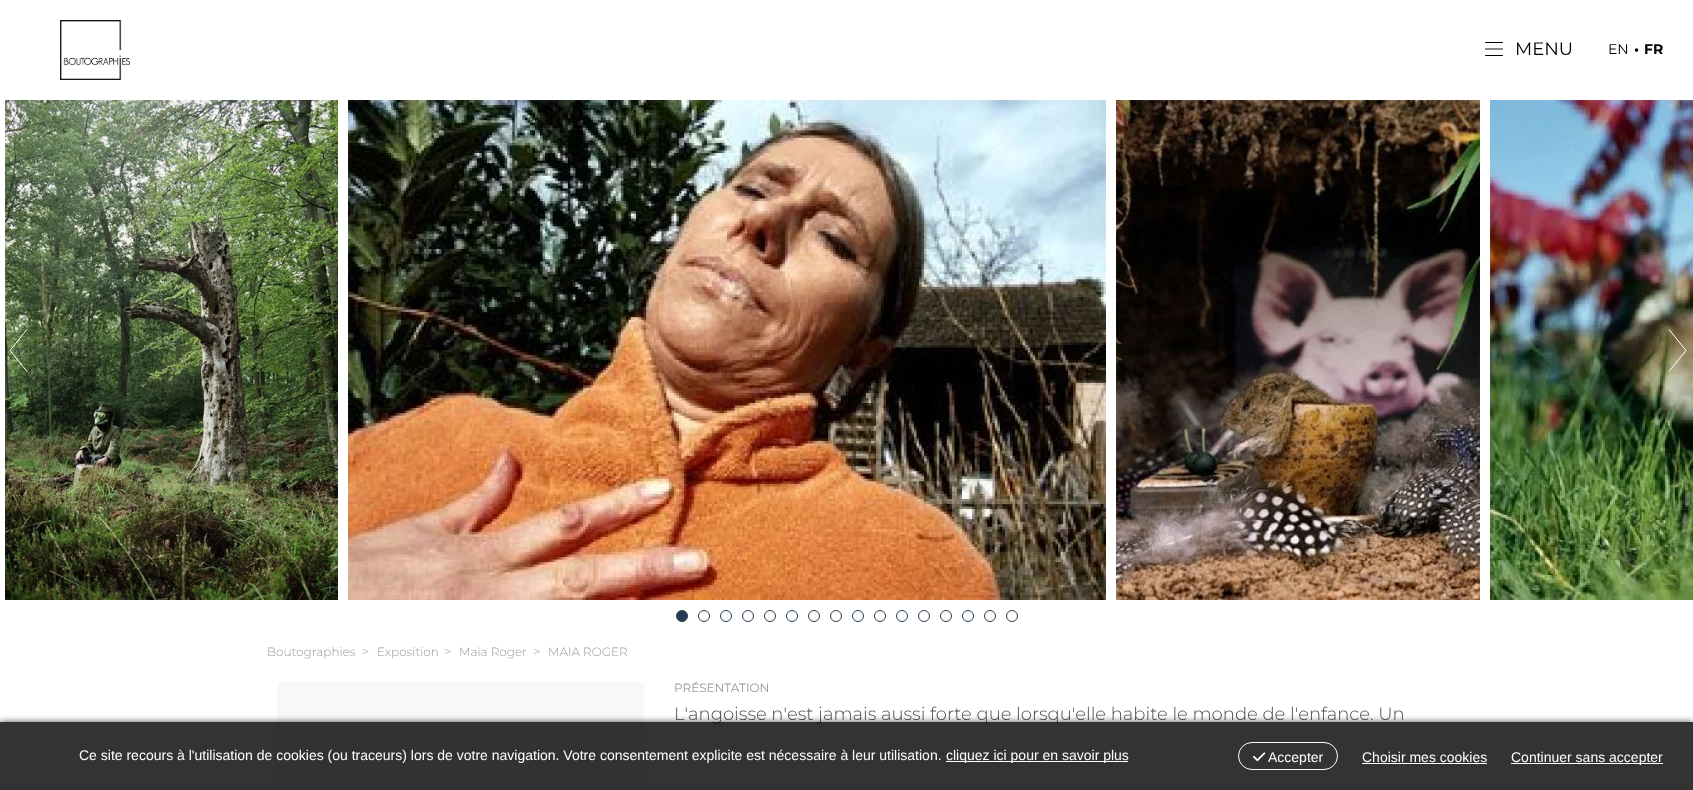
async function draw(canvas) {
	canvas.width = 1693;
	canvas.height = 790;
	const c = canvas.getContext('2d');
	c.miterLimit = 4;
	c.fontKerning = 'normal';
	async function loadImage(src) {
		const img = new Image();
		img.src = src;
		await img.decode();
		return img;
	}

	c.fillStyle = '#fff';
	c.fillRect(0, 0, 1693, 790);
	c.drawImage(await loadImage('img1.png'), 60, 20, 70, 60);
	c.drawImage(await loadImage('img2.png'), 1485, 42, 18, 14);
	c.font = '18px Montserrat';
	c.fillStyle = '#000';
	c.fillText('MENU', 1515, 55);
	c.font = '14px Montserrat';
	c.fillText('EN', 1608, 54);
	c.font = 'bold 14px Montserrat';
	c.fillText('•', 1634, 54);
	c.fillText('FR', 1644, 54);
	c.drawImage(await loadImage('img3.png'), 5, 100, 333, 500);
	c.drawImage(await loadImage('img4.png'), 348, 100, 758, 500);
	c.drawImage(await loadImage('img5.png'), 1116, 100, 364, 500);
	c.drawImage(await loadImage('img6.png'), 1490, 100, 203, 500);
	c.beginPath();
	c.moveTo(27, 329.5);
	c.lineTo(10, 350.5);
	c.lineTo(27, 371.5);
	c.strokeStyle = '#fff';
	c.stroke();
	c.beginPath();
	c.moveTo(1669, 371.5);
	c.lineTo(1686, 350.5);
	c.lineTo(1669, 329.5);
	c.stroke();
	c.fillStyle = '#273c52';
	c.beginPath();
	c.arc(682, 616, 5.5, 0, 2 * Math.PI);
	c.fill();
	c.strokeStyle = '#273c52';
	c.stroke();
	c.beginPath();
	c.arc(704, 616, 5.5, 0, 2 * Math.PI);
	c.stroke();
	c.beginPath();
	c.arc(726, 616, 5.5, 0, 2 * Math.PI);
	c.stroke();
	c.beginPath();
	c.arc(748, 616, 5.5, 0, 2 * Math.PI);
	c.stroke();
	c.beginPath();
	c.arc(770, 616, 5.5, 0, 2 * Math.PI);
	c.stroke();
	c.beginPath();
	c.arc(792, 616, 5.5, 0, 2 * Math.PI);
	c.stroke();
	c.beginPath();
	c.arc(814, 616, 5.5, 0, 2 * Math.PI);
	c.stroke();
	c.beginPath();
	c.arc(836, 616, 5.5, 0, 2 * Math.PI);
	c.stroke();
	c.beginPath();
	c.arc(858, 616, 5.5, 0, 2 * Math.PI);
	c.stroke();
	c.beginPath();
	c.arc(880, 616, 5.5, 0, 2 * Math.PI);
	c.stroke();
	c.beginPath();
	c.arc(902, 616, 5.5, 0, 2 * Math.PI);
	c.stroke();
	c.beginPath();
	c.arc(924, 616, 5.5, 0, 2 * Math.PI);
	c.stroke();
	c.beginPath();
	c.arc(946, 616, 5.5, 0, 2 * Math.PI);
	c.stroke();
	c.beginPath();
	c.arc(968, 616, 5.5, 0, 2 * Math.PI);
	c.stroke();
	c.beginPath();
	c.arc(990, 616, 5.5, 0, 2 * Math.PI);
	c.stroke();
	c.beginPath();
	c.arc(1012, 616, 5.5, 0, 2 * Math.PI);
	c.stroke();
	c.font = '300 12px Montserrat';
	c.fillStyle = '#999';
	c.fillText('Boutographies', 267, 656);
	c.font = '300 13px Montserrat';
	c.fillText('>', 362, 656);
	c.font = '300 12px Montserrat';
	c.fillText('Exposition', 377, 656);
	c.font = '300 13px Montserrat';
	c.fillText('>', 444, 656);
	c.font = '300 12px Montserrat';
	c.fillText('Maïa Roger', 459, 656);
	c.font = '300 13px Montserrat';
	c.fillText('>', 533, 656);
	c.font = '300 12px Montserrat';
	c.fillText('MAIA ROGER', 548, 656);
	c.fillStyle = '#f8f8f8';
	c.fillRect(277, 682, 367, 108);
	c.font = '12px Montserrat';
	c.fillStyle = '#999';
	c.fillText('PRÉSENTATION', 674, 692);
	c.font = '300 18px Montserrat';
	c.fillStyle = '#505050';
	c.fillText('L\'angoisse n\'est jamais aussi forte que lorsqu\'elle habite le monde de l\'enfance. Un', 674, 720);
	c.save();
	c.beginPath();
	c.rect(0, 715, 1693, 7);
	c.clip();
	c.fillStyle = '#000000b3';
	c.filter = 'blur(3.5px)';
	c.beginPath();
	c.rect(0, 722, 1693, 68);
	c.fill();
	c.filter = 'none';
	c.restore();
	c.fillStyle = '#000000cc';
	c.fillRect(0, 722, 1693, 68);
	c.font = '14px Liberation Sans';
	c.fillStyle = '#fff';
	c.fillText('Ce site recours à l\'utilisation de cookies (ou traceurs) lors de votre navigation. Votre consentement explicite est nécessaire à leur utilisation.', 79, 760);
	c.fillRect(946, 761, 182, 1);
	c.fillText('cliquez ici pour en savoir plus', 946, 760);
	c.beginPath();
	c.roundRect(1238.5, 742.5, 99, 27, 13.5);
	c.strokeStyle = '#fff';
	c.stroke();
	c.drawImage(await loadImage('img7.png'), 1253, 752, 13, 10);
	c.fillText('Accepter', 1268, 762);
	c.fillText('Choisir mes cookies', 1362, 762);
	c.fillRect(1362, 763, 125, 1);
	c.fillRect(1511, 763, 152, 1);
	c.fillText('Continuer sans accepter', 1511, 762);
}

draw(document.querySelector('canvas'));
